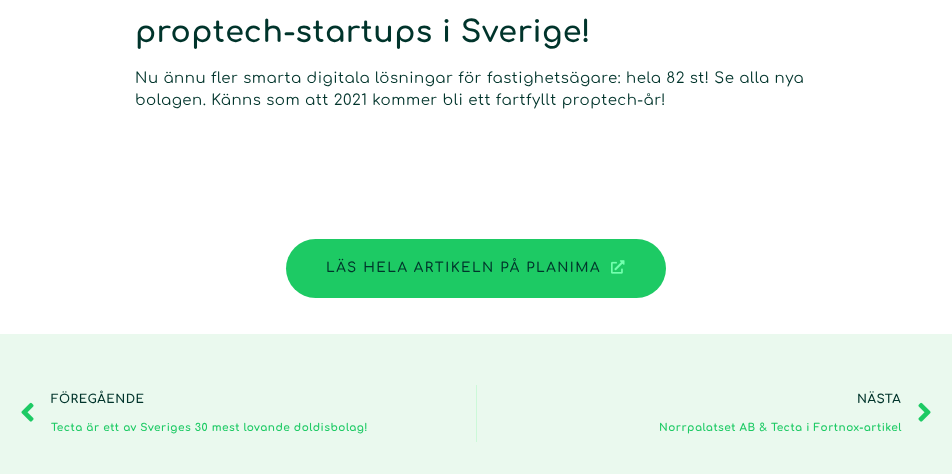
async function draw(canvas) {
	canvas.width = 952;
	canvas.height = 474;
	const c = canvas.getContext('2d');
	c.miterLimit = 4;
	c.fontKerning = 'normal';
	async function loadImage(src) {
		const img = new Image();
		img.src = src;
		await img.decode();
		return img;
	}

	c.fillStyle = '#fff';
	c.fillRect(0, 0, 952, 474);
	c.letterSpacing = '0.5px';
	c.font = 'bold 30px Comfortaa';
	c.fillStyle = '#00342b';
	c.fillText('proptech-startups i Sverige!', 135, 42);
	c.font = '15px Comfortaa';
	c.fillText('Nu ännu fler smarta digitala lösningar för fastighetsägare: hela 82 st! Se alla nya', 135, 83);
	c.fillText('bolagen. Känns som att 2021 kommer bli ett fartfyllt proptech-år!', 135, 105);
	c.fillStyle = '#1dca64';
	c.beginPath();
	c.roundRect(286, 239, 380, 59, 29.5);
	c.fill();
	c.letterSpacing = '1.5px';
	c.font = '600 13.5px Comfortaa';
	c.fillStyle = '#00342b';
	c.fillText('LÄS HELA ARTIKELN PÅ PLANIMA', 326, 272);
	c.drawImage(await loadImage('img1.png'), 611, 260, 14, 14);
	c.fillStyle = '#eaf9ee';
	c.fillRect(0, 334, 952, 140);
	c.drawImage(await loadImage('img2.png'), 21, 402, 13, 20);
	c.letterSpacing = '0.5px';
	c.font = 'bold 12px Comfortaa';
	c.fillStyle = '#00342b';
	c.fillText('FÖREGÅENDE', 51, 403);
	c.font = 'bold 10.5px Comfortaa';
	c.fillStyle = '#1dca64';
	c.fillText('Tecta är ett av Sveriges 30 mest lovande doldisbolag!', 51, 431);
	c.fillStyle = '#ccf9d8';
	c.fillRect(476, 385, 1, 57);
	c.font = 'bold 12px Comfortaa';
	c.fillStyle = '#00342b';
	c.fillText('NÄSTA', 857, 403);
	c.font = 'bold 10.5px Comfortaa';
	c.fillStyle = '#1dca64';
	c.fillText('Norrpalatset AB & Tecta i Fortnox-artikel', 659, 431);
	c.drawImage(await loadImage('img3.png'), 918, 402, 13, 20);
}

draw(document.querySelector('canvas'));
